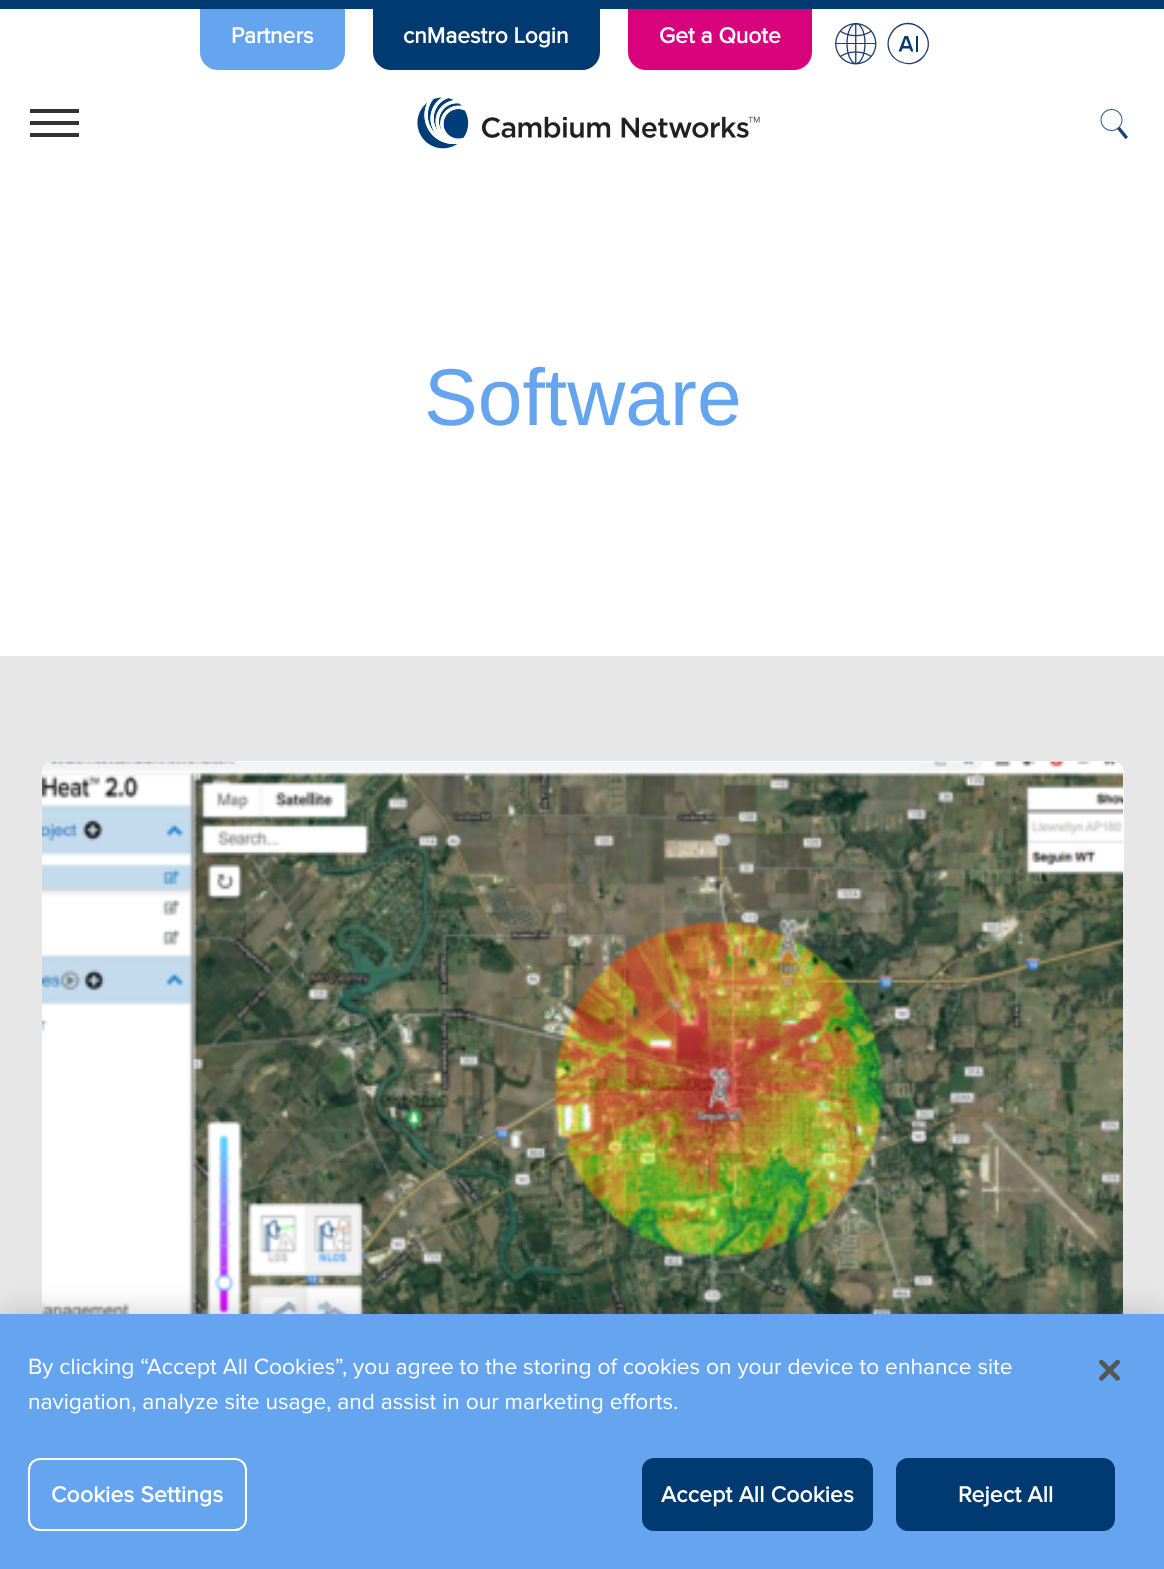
async function draw(canvas) {
	canvas.width = 1164;
	canvas.height = 1569;
	const c = canvas.getContext('2d');
	c.miterLimit = 4;
	c.fontKerning = 'normal';
	async function loadImage(src) {
		const img = new Image();
		img.src = src;
		await img.decode();
		return img;
	}

	c.fillStyle = '#e7e7e7';
	c.fillRect(0, 0, 1164, 1569);
	c.fillStyle = '#003a70';
	c.fillRect(0, 0, 1164, 9);
	c.fillStyle = '#fff';
	c.fillRect(0, 9, 1164, 647);
	c.fillStyle = '#65a4ef';
	c.beginPath();
	c.roundRect(200, 9, 145, 61, [0, 0, 18, 18]);
	c.fill();
	c.font = 'bold 22.75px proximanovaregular';
	c.fillStyle = '#fff';
	c.fillText('Partners', 231, 43);
	c.fillStyle = '#003a70';
	c.beginPath();
	c.roundRect(373, 9, 227, 61, [0, 0, 18, 18]);
	c.fill();
	c.fillStyle = '#fff';
	c.fillText('cnMaestro Login', 403, 43);
	c.fillStyle = '#d9027d';
	c.beginPath();
	c.roundRect(628, 9, 184, 61, [0, 0, 18, 18]);
	c.fill();
	c.fillStyle = '#fff';
	c.fillText('Get a Quote', 659, 43);
	c.drawImage(await loadImage('img1.png'), 835, 22, 42, 43);
	c.beginPath();
	c.moveTo(923.5, 56.5);
	c.bezierCurveTo(910.5, 72, 884.5, 60, 888.5, 39.5);
	c.bezierCurveTo(889.5, 36, 891.5, 32.5, 894, 29.5);
	c.bezierCurveTo(912.5, 11.5, 939.5, 38, 923.5, 56.5);
	c.strokeStyle = '#1c3d6e';
	c.lineWidth = 1.3;
	c.stroke();
	c.fillStyle = '#003a70';
	c.beginPath();
	c.moveTo(911, 51.5);
	c.lineTo(909.5, 48.5);
	c.lineTo(902.5, 48.5);
	c.lineTo(901.5, 51.5);
	c.lineTo(898.5, 51.5);
	c.lineTo(904.5, 36);
	c.lineTo(908, 36);
	c.lineTo(913.5, 51.5);
	c.closePath();
	c.moveTo(906, 38.5);
	c.lineTo(903.5, 46);
	c.lineTo(909, 46);
	c.closePath();
	c.fill();
	for (const [x, y, w, h, color] of [
		[916, 36, 2, 16, '#003a70'],
		[30, 109, 49, 4, '#333'],
		[30, 121, 49, 4, '#333'],
		[30, 133, 49, 4, '#333'],
	]) {
		c.fillStyle = color;
		c.fillRect(x, y, w, h);
	}
	c.drawImage(await loadImage('img2.png'), 417, 97, 343, 52);
	c.drawImage(await loadImage('img3.png'), 1100, 109, 28, 30);
	c.font = '80.5px Liberation Sans';
	c.fillStyle = '#65a4ef';
	c.fillText('Software', 424, 425);
	c.fillStyle = '#fff';
	c.beginPath();
	c.roundRect(42, 761, 1082, 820, 12);
	c.fill();
	c.drawImage(await loadImage('img4.png'), 42, 761, 1082, 553);
	c.fillStyle = '#00000033';
	c.filter = 'blur(16px)';
	c.beginPath();
	c.rect(0, 1314, 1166, 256);
	c.fill();
	c.filter = 'none';
	c.fillStyle = '#65a4ef';
	c.fillRect(0, 1314, 1164, 255);
	c.font = '22.75px proximanovaregular';
	c.fillStyle = '#fff';
	c.fillText('By clicking “Accept All Cookies”, you agree to the storing of cookies on your device to enhance site', 28, 1374);
	c.fillText('navigation, analyze site usage, and assist in our marketing efforts.', 28, 1409);
	c.beginPath();
	c.roundRect(29, 1459, 217, 71, 11);
	c.strokeStyle = '#fff';
	c.lineWidth = 2;
	c.stroke();
	c.letterSpacing = '0.25px';
	c.font = 'bold 22.75px proximanovaregular';
	c.fillText('Cookies Settings', 51, 1502);
	c.fillStyle = '#003a70';
	c.beginPath();
	c.roundRect(643, 1459, 229, 71, 11);
	c.fill();
	c.strokeStyle = '#003a70';
	c.stroke();
	c.fillStyle = '#fff';
	c.fillText('Accept All Cookies', 661, 1502);
	c.fillStyle = '#003a70';
	c.beginPath();
	c.roundRect(897, 1459, 217, 71, 11);
	c.fill();
	c.stroke();
	c.fillStyle = '#fff';
	c.fillText('Reject All', 958, 1502);
	c.drawImage(await loadImage('img5.png'), 1099, 1360, 21, 21);
}

draw(document.querySelector('canvas'));
